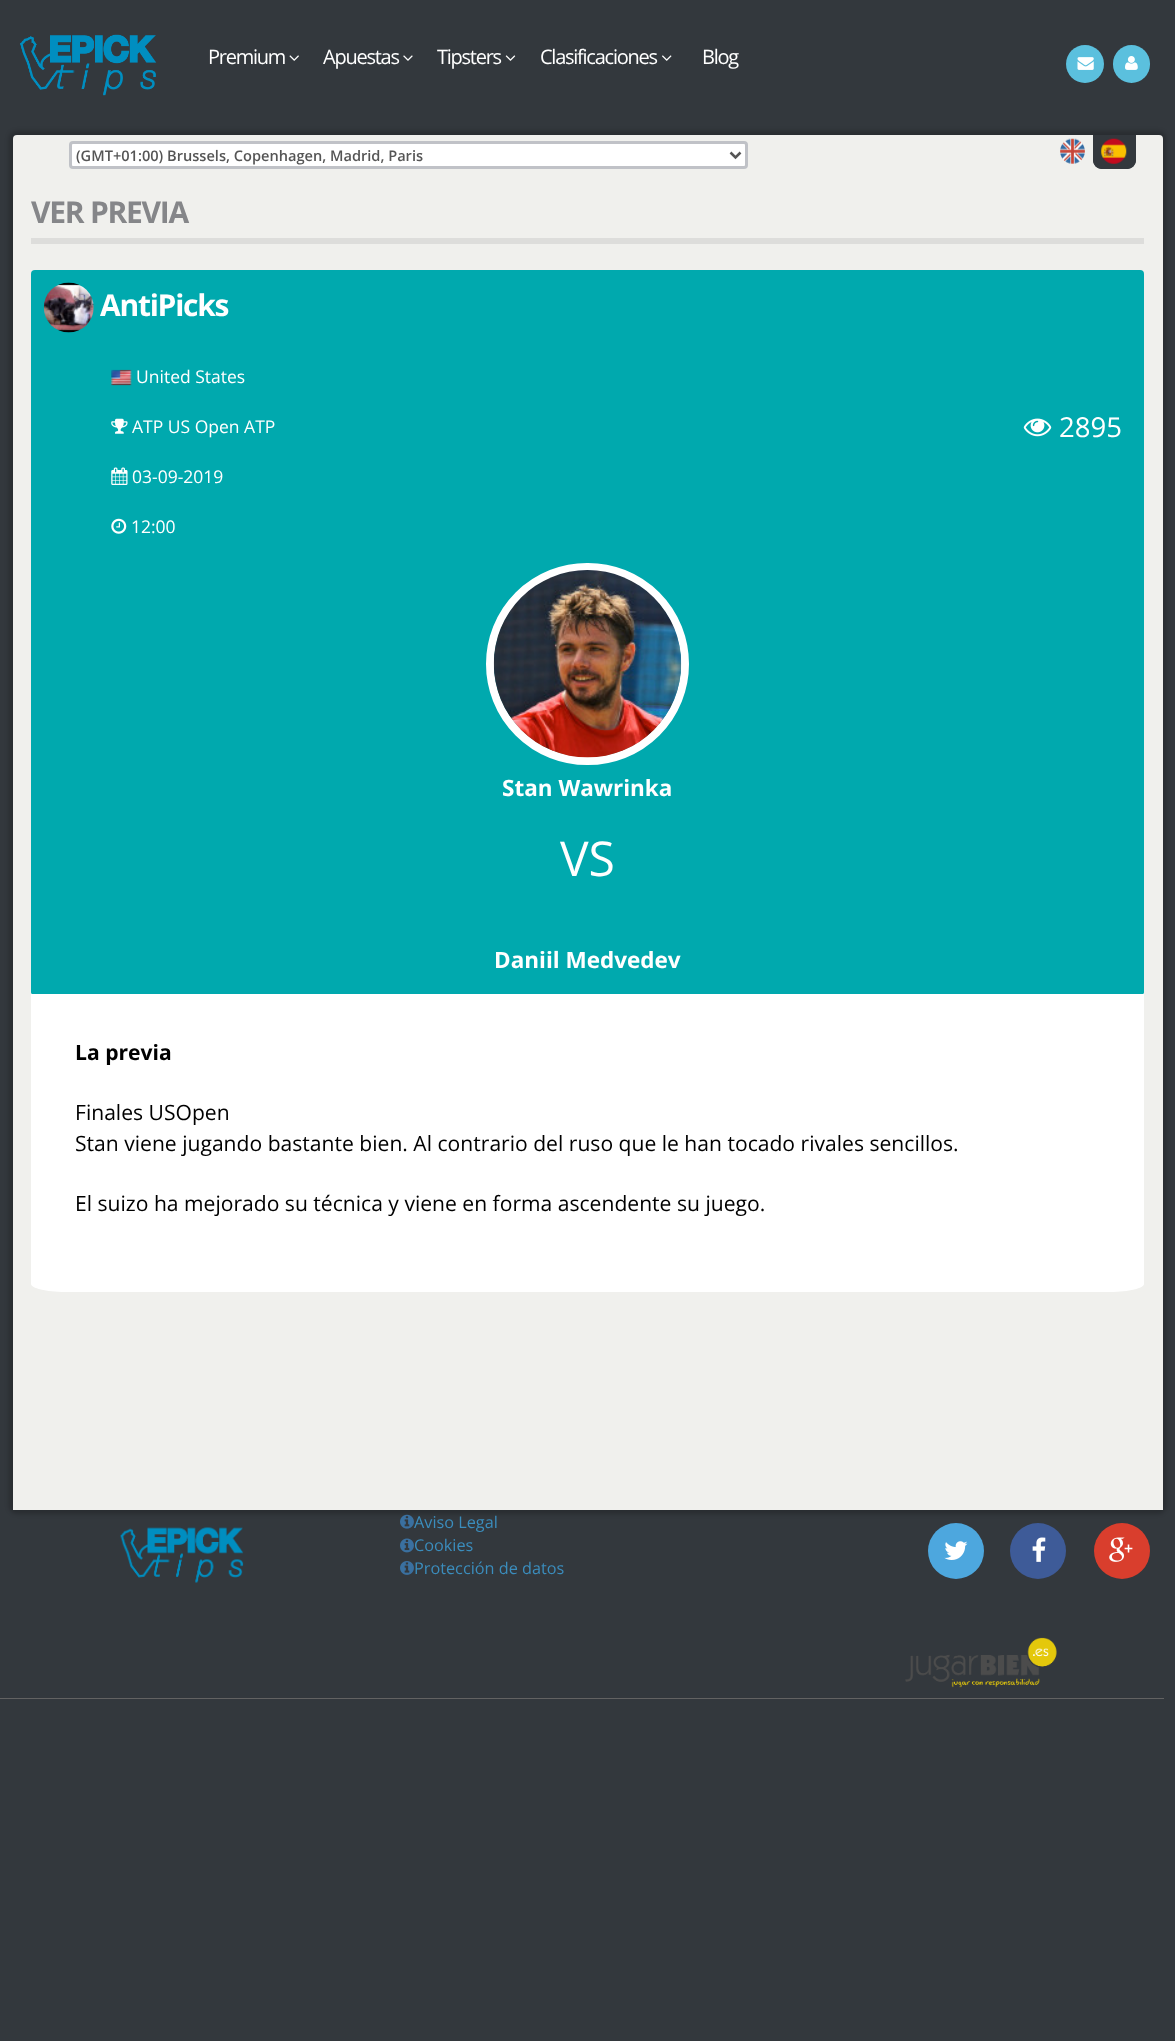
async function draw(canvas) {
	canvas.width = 1175;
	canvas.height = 2041;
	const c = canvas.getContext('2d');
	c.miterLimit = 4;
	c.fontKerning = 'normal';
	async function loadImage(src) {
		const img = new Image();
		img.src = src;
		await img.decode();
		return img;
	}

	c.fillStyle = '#33383d';
	c.fillRect(0, 0, 1175, 2041);
	c.drawImage(await loadImage('img1.png'), 20, 34, 137, 62);
	c.letterSpacing = '-1.25px';
	c.font = '20px Open Sans';
	c.fillStyle = '#fff';
	c.fillText('Premium', 208, 64);
	c.drawImage(await loadImage('img2.png'), 289, 55, 10, 6);
	c.fillText('Apuestas', 323, 64);
	c.drawImage(await loadImage('img3.png'), 403, 55, 10, 6);
	c.fillText('Tipsters', 437, 64);
	c.drawImage(await loadImage('img4.png'), 505, 55, 11, 6);
	c.fillText('Clasificaciones', 540, 64);
	c.drawImage(await loadImage('img5.png'), 662, 55, 10, 6);
	c.fillText('Blog', 702, 64);
	c.fillStyle = '#5bc0de';
	c.beginPath();
	c.arc(1085, 64, 19, 0, 2 * Math.PI);
	c.fill();
	c.drawImage(await loadImage('img6.png'), 1077, 57, 17, 13);
	c.beginPath();
	c.roundRect(1113, 45, 37, 38, 18.5);
	c.fill();
	c.drawImage(await loadImage('img7.png'), 1125, 56, 13, 14);
	c.fillStyle = '#00000033';
	c.filter = 'blur(2px)';
	c.beginPath();
	c.roundRect(9, 131, 1157, 1383, 8);
	c.fill();
	c.filter = 'none';
	c.fillStyle = '#f0f0ed';
	c.beginPath();
	c.roundRect(13, 135, 1150, 1375, [4, 4, 0, 0]);
	c.fill();
	c.fillStyle = '#fff';
	c.beginPath();
	c.roundRect(70.5, 142.5, 676, 25, 2.5);
	c.fill();
	c.strokeStyle = '#c0c2c7';
	c.lineWidth = 3;
	c.stroke();
	c.beginPath();
	c.moveTo(730.5, 152.5);
	c.lineTo(735.5, 157.5);
	c.lineTo(740.5, 152.5);
	c.strokeStyle = '#555';
	c.lineWidth = 2.5;
	c.stroke();
	c.letterSpacing = '0px';
	c.font = '600 14.6px Open Sans';
	c.fillStyle = '#555';
	c.fillText('(GMT+01:00) Brussels, Copenhagen, Madrid, Paris', 76, 161);
	c.drawImage(await loadImage('img8.png'), 1060, 138, 25, 26);
	c.fillStyle = '#33383d';
	c.beginPath();
	c.roundRect(1093, 135, 43, 34, [0, 0, 9, 9]);
	c.fill();
	c.beginPath();
	c.moveTo(1136, 135);
	c.lineTo(1136, 160);
	c.bezierCurveTo(1136, 165, 1132, 169, 1127, 169);
	c.lineTo(1102, 169);
	c.bezierCurveTo(1097, 169, 1093, 165, 1093, 160);
	c.lineTo(1093, 135);
	c.lineTo(1096, 135);
	c.lineTo(1096, 160);
	c.bezierCurveTo(1096, 163, 1099, 166, 1102, 166);
	c.lineTo(1127, 166);
	c.bezierCurveTo(1130, 166, 1133, 163, 1133, 160);
	c.lineTo(1133, 135);
	c.closePath();
	c.fill();
	c.drawImage(await loadImage('img9.png'), 1101, 138, 26, 26);
	c.fillStyle = '#dddddb';
	c.fillRect(31, 238, 1113, 6);
	c.letterSpacing = '-1.25px';
	c.font = 'bold 30px Open Sans';
	c.fillStyle = '#858689';
	c.fillText('VER PREVIA', 31, 223);
	c.fillStyle = '#00a9ae';
	c.beginPath();
	c.roundRect(31, 270, 1113, 725, 4);
	c.fill();
	c.drawImage(await loadImage('img10.png'), 43, 282, 51, 51);
	c.fillStyle = '#fff';
	c.fillText('AntiPicks', 100, 316);
	c.fillStyle = '#00a9ae';
	c.beginPath();
	c.roundRect(31, 333, 1113, 662, [0, 0, 4, 4]);
	c.fill();
	c.drawImage(await loadImage('img11.png'), 1023, 418, 29, 19);
	c.letterSpacing = '0px';
	c.font = '27.5px Open Sans';
	c.fillStyle = '#fff';
	c.fillText('2895', 1059, 437);
	c.drawImage(await loadImage('img12.png'), 111, 369, 21, 17);
	c.font = '17.5px Open Sans';
	c.fillText('United States', 136, 383);
	c.drawImage(await loadImage('img13.png'), 111, 418, 17, 16);
	c.fillText('ATP US Open ATP', 132, 433);
	c.drawImage(await loadImage('img14.png'), 111, 467, 17, 18);
	c.fillText('03-09-2019', 132, 483);
	c.drawImage(await loadImage('img15.png'), 111, 518, 16, 16);
	c.fillText('12:00', 131, 533);
	c.beginPath();
	c.roundRect(490, 567, 195, 194, 97);
	c.strokeStyle = '#fff';
	c.lineWidth = 8;
	c.stroke();
	c.drawImage(await loadImage('img16.png'), 493, 570, 189, 188);
	c.font = 'bold 22.5px Open Sans';
	c.fillText('Stan Wawrinka', 502, 796);
	c.font = '48px Open Sans';
	c.fillText('VS', 560, 876);
	c.font = 'bold 22.5px Open Sans';
	c.fillText('Daniil Medvedev', 494, 968);
	c.beginPath();
	c.moveTo(31, 994);
	c.lineTo(1144, 994);
	c.lineTo(1144, 1284);
	c.bezierCurveTo(1144, 1288, 1129, 1292, 1110, 1292);
	c.lineTo(65, 1292);
	c.bezierCurveTo(46, 1292, 31, 1288, 31, 1284);
	c.closePath();
	c.fill();
	c.font = 'bold 21.1px Open Sans';
	c.fillStyle = '#000';
	c.fillText('La previa', 75, 1060);
	c.font = '21.1px Open Sans';
	for (const [text, x, y] of [
		['Finales USOpen', 75, 1120],
		['Stan viene jugando bastante bien. Al contrario del ruso que le han tocado rivales sencillos.', 75, 1151],
		['El suizo ha mejorado su técnica y viene en forma ascendente su juego.', 75, 1211],
	]) {
		c.fillText(text, x, y);
	}
	c.drawImage(await loadImage('img17.png'), 120, 1527, 124, 56);
	c.drawImage(await loadImage('img18.png'), 400, 1514, 14, 15);
	c.font = '16.25px Open Sans';
	c.fillStyle = '#3b8dbd';
	c.fillText('Aviso Legal', 414, 1528);
	c.drawImage(await loadImage('img19.png'), 400, 1538, 14, 15);
	c.fillText('Cookies', 414, 1551);
	c.drawImage(await loadImage('img20.png'), 400, 1561, 14, 14);
	c.fillText('Protección de datos', 414, 1574);
	c.fillStyle = '#4da7de';
	c.beginPath();
	c.arc(956, 1551, 28, 0, 2 * Math.PI);
	c.fill();
	c.drawImage(await loadImage('img21.png'), 944, 1541, 24, 19);
	c.fillStyle = '#3e5b98';
	c.beginPath();
	c.arc(1038, 1551, 28, 0, 2 * Math.PI);
	c.fill();
	c.drawImage(await loadImage('img22.png'), 1032, 1537, 14, 25);
	c.fillStyle = '#d93e2d';
	c.beginPath();
	c.arc(1122, 1551, 28, 0, 2 * Math.PI);
	c.fill();
	c.drawImage(await loadImage('img23.png'), 1109, 1537, 24, 25);
	c.drawImage(await loadImage('img24.png'), 905, 1637, 152, 51);
	c.fillStyle = '#626262';
	c.fillRect(0, 1698, 1164, 1);
}

draw(document.querySelector('canvas'));
